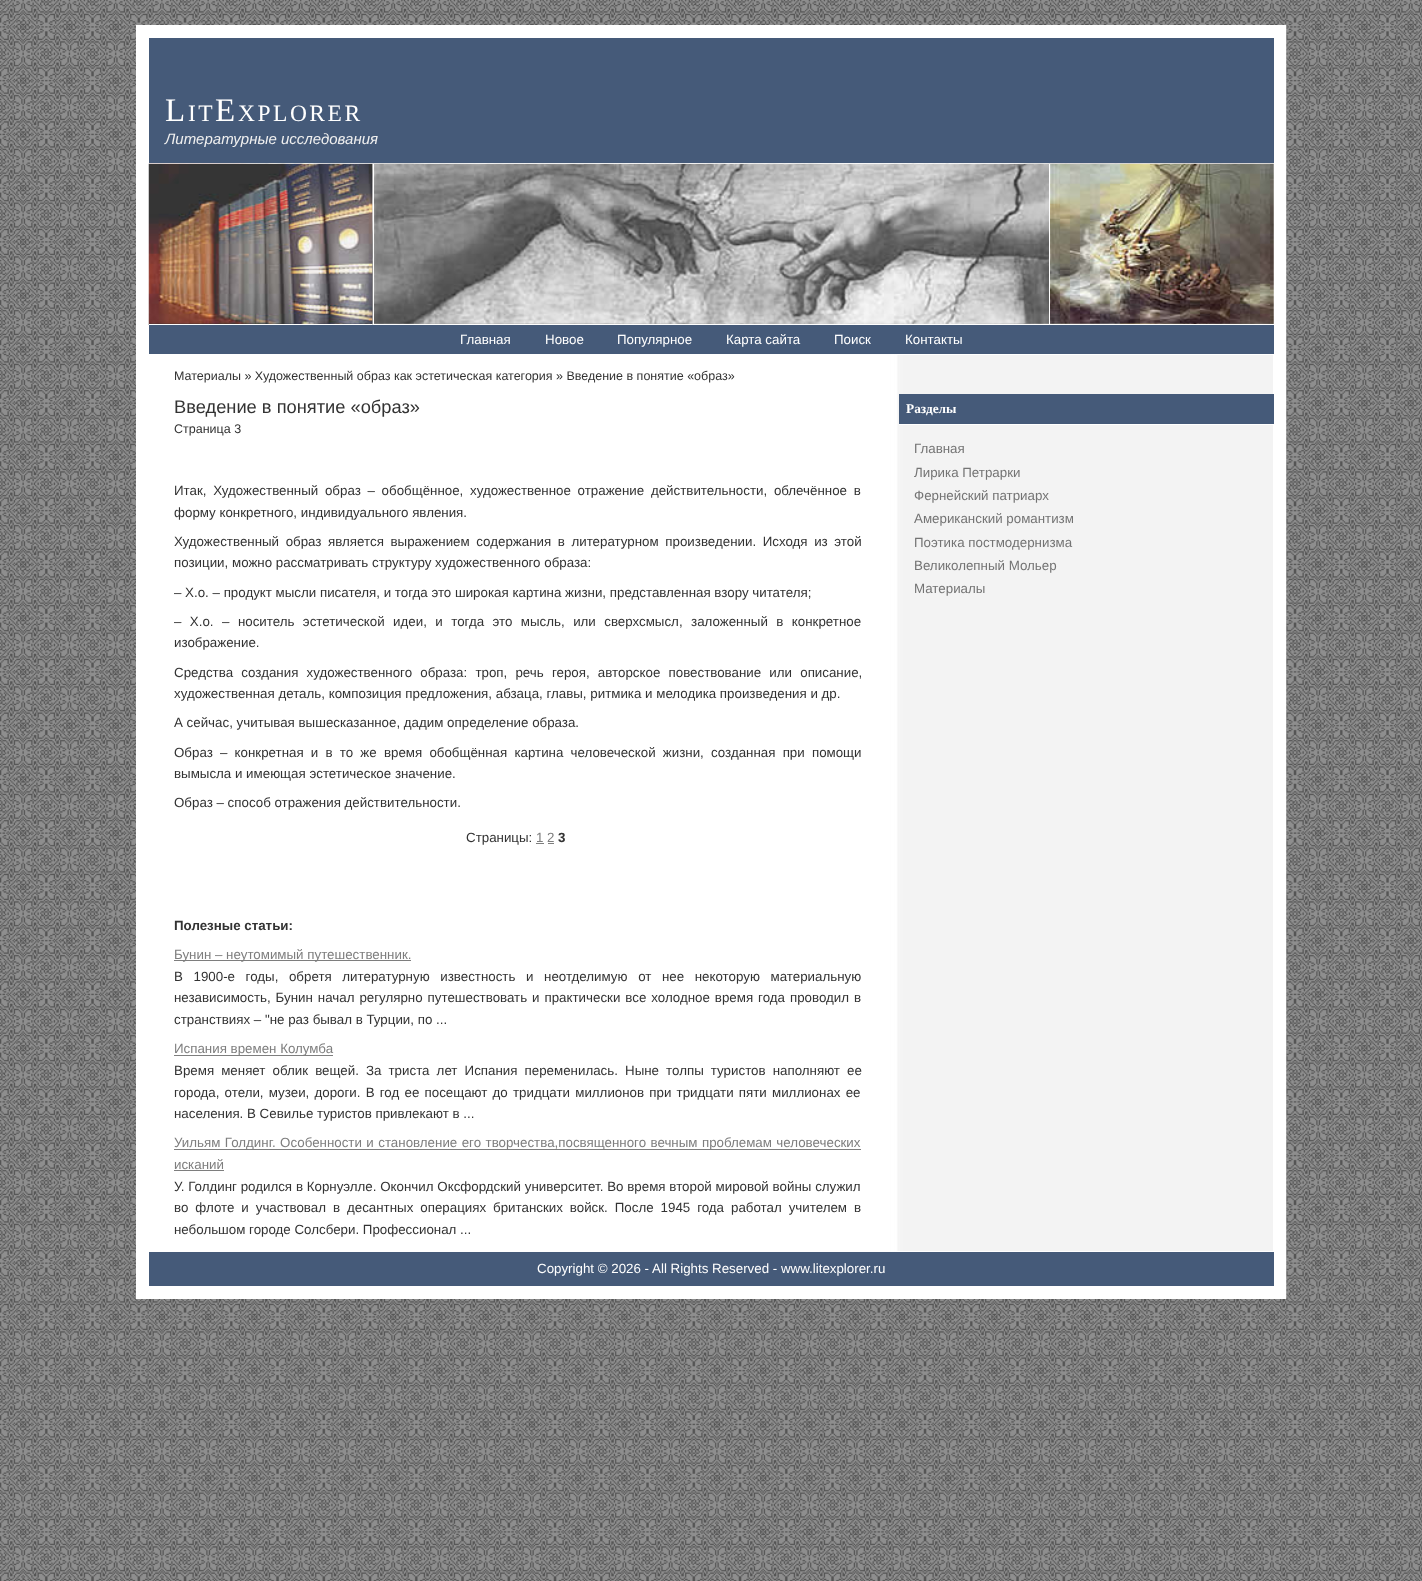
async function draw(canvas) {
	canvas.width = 1422;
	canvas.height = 1581;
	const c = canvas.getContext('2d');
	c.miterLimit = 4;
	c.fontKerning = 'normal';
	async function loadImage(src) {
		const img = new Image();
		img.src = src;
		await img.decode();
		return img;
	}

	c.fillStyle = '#fff';
	c.fillRect(0, 0, 1422, 1581);
	c.drawImage(await loadImage('img1.png'), 0, 0, 1422, 1581);
	c.drawImage(await loadImage('img2.png'), 149, 25, 1138, 1274);
	c.strokeStyle = '#fff';
	c.lineWidth = 13;
	c.strokeRect(142.5, 31.5, 1137, 1261);
	c.fillStyle = '#455a79';
	c.fillRect(149, 38, 1125, 125);
	c.letterSpacing = '2.5px';
	c.font = '33px Liberation Serif';
	c.fillStyle = '#fff';
	c.fillText('L', 165, 121);
	c.font = '23.5px Liberation Serif';
	c.fillText('IT', 188, 121);
	c.font = '33px Liberation Serif';
	c.fillText('E', 215, 121);
	c.font = '23.5px Liberation Serif';
	c.fillText('XPLORER', 238, 121);
	c.letterSpacing = '0px';
	c.font = 'italic 15px Liberation Sans';
	c.fillStyle = '#f0f0f0';
	c.fillText('Литературные исследования', 165, 144);
	c.fillStyle = '#fff';
	c.fillRect(897, 163, 377, 1);
	c.drawImage(await loadImage('img3.png'), 148, 163, 225, 162);
	c.fillRect(149, 324, 224, 1);
	c.drawImage(await loadImage('img4.png'), 372, 163, 678, 162);
	for (const [x, y, w, h, color] of [
		[1049, 164, 1, 161, '#fff'],
		[373, 324, 901, 1, '#fff'],
		[373, 164, 1, 161, '#fff'],
	]) {
		c.fillStyle = color;
		c.fillRect(x, y, w, h);
	}
	c.drawImage(await loadImage('img5.png'), 1050, 163, 224, 161);
	c.fillStyle = '#455a79';
	c.fillRect(149, 325, 1125, 29);
	c.fillStyle = '#fff';
	c.fillRect(897, 354, 377, 1);
	c.font = '13.33px Liberation Sans';
	for (const [text, x, y] of [
		['Главная', 460, 344],
		['Новое', 545, 344],
		['Популярное', 617, 344],
		['Карта сайта', 726, 344],
		['Поиск', 834, 344],
		['Контакты', 905, 344],
	]) {
		c.fillText(text, x, y);
	}
	c.font = '12.5px Liberation Sans';
	c.fillStyle = '#333';
	c.fillText('Материалы » Художественный образ как эстетическая категория » Введение в понятие «образ»', 174, 380);
	c.font = '18.3px Liberation Sans';
	c.fillText('Введение в понятие «образ»', 174, 413);
	c.font = '12.5px Liberation Sans';
	c.fillText('Страница 3', 174, 433);
	c.wordSpacing = '3px';
	c.font = '13.33px Liberation Sans';
	c.fillText('Итак, Художественный образ – обобщённое, художественное отражение действительности, облечённое в', 174, 495);
	c.wordSpacing = '0px';
	c.fillText('форму конкретного, индивидуального явления.', 174, 517);
	c.wordSpacing = '2.9px';
	c.fillText('Художественный образ является выражением содержания в литературном произведении. Исходя из этой', 174, 546);
	c.wordSpacing = '0px';
	c.fillText('позиции, можно рассматривать структуру художественного образа:', 174, 567);
	c.fillText('– Х.о. – продукт мысли писателя, и тогда это широкая картина жизни, представленная взору читателя;', 174, 597);
	c.wordSpacing = '4.75px';
	c.fillText('– Х.о. – носитель эстетической идеи, и тогда это мысль, или сверхсмысл, заложенный в конкретное', 174, 626);
	c.wordSpacing = '0px';
	c.fillText('изображение.', 174, 647);
	c.wordSpacing = '4.5px';
	c.fillText('Средства создания художественного образа: троп, речь героя, авторское повествование или описание,', 174, 677);
	c.wordSpacing = '0px';
	c.fillText('художественная деталь, композиция предложения, абзаца, главы, ритмика и мелодика произведения и др.', 174, 698);
	c.fillText('А сейчас, учитывая вышесказанное, дадим определение образа.', 174, 727);
	c.wordSpacing = '3.5px';
	c.fillText('Образ – конкретная и в то же время обобщённая картина человеческой жизни, созданная при помощи', 174, 757);
	c.wordSpacing = '0px';
	for (const [text, x, y] of [
		['вымысла и имеющая эстетическое значение.', 174, 778],
		['Образ – способ отражения действительности.', 174, 807],
		['Страницы:', 466, 842],
	]) {
		c.fillText(text, x, y);
	}
	c.fillStyle = '#7e7e7e';
	c.fillText('1 2', 536, 842);
	c.fillRect(536, 843, 8, 1);
	c.font = 'bold 13.33px Liberation Sans';
	c.fillStyle = '#333';
	c.fillText('3', 558, 842);
	c.fillStyle = '#7e7e7e';
	c.fillRect(548, 843, 6, 1);
	c.fillStyle = '#333';
	c.fillText('Полезные статьи:', 174, 930);
	c.fillStyle = '#7e7e7e';
	c.fillRect(174, 960, 237, 1);
	c.font = '13.33px Liberation Sans';
	c.fillText('Бунин – неутомимый путешественник.', 174, 959);
	c.wordSpacing = '6.9px';
	c.fillStyle = '#333';
	c.fillText('В 1900-е годы, обретя литературную известность и неотделимую от нее некоторую материальную', 174, 981);
	c.wordSpacing = '1.25px';
	c.fillText('независимость, Бунин начал регулярно путешествовать и практически все холодное время года проводил в', 174, 1002);
	c.wordSpacing = '0px';
	c.fillText('странствиях – "не раз бывал в Турции, по ...', 174, 1024);
	c.fillStyle = '#7e7e7e';
	c.fillRect(174, 1055, 159, 1);
	c.fillText('Испания времен Колумба', 174, 1053);
	c.wordSpacing = '3.4px';
	c.fillStyle = '#333';
	c.fillText('Время меняет облик вещей. За триста лет Испания переменилась. Ныне толпы туристов наполняют ее', 174, 1075);
	c.wordSpacing = '1.5px';
	c.fillText('города, отели, музеи, дороги. В год ее посещают до тридцати миллионов при тридцати пяти миллионах ее', 174, 1097);
	c.wordSpacing = '0px';
	c.fillText('населения. В Севилье туристов привлекают в ...', 174, 1118);
	c.fillStyle = '#7e7e7e';
	c.fillRect(174, 1149, 687, 1);
	c.wordSpacing = '0.75px';
	c.fillText('Уильям Голдинг. Особенности и становление его творчества,посвященного вечным проблемам человеческих', 174, 1147);
	c.wordSpacing = '0px';
	c.fillText('исканий', 174, 1169);
	c.fillRect(174, 1170, 50, 1);
	c.wordSpacing = '0.1px';
	c.fillStyle = '#333';
	c.fillText('У. Голдинг родился в Корнуэлле. Окончил Оксфордский университет. Во время второй мировой войны служил', 174, 1191);
	c.wordSpacing = '3.25px';
	c.fillText('во флоте и участвовал в десантных операциях британских войск. После 1945 года работал учителем в', 174, 1212);
	c.wordSpacing = '0px';
	c.fillText('небольшом городе Солсбери. Профессионал ...', 174, 1234);
	c.fillStyle = '#455a79';
	c.fillRect(899, 394, 375, 30);
	c.fillStyle = '#fff';
	c.fillRect(899, 424, 375, 1);
	c.font = 'bold 13.33px Liberation Serif';
	c.fillText('Разделы', 906, 413);
	c.font = '13.33px Liberation Sans';
	c.fillStyle = '#747474';
	for (const [text, x, y] of [
		['Главная', 914, 453],
		['Лирика Петрарки', 914, 477],
		['Фернейский патриарх', 914, 500],
		['Американский романтизм', 914, 523],
		['Поэтика постмодернизма', 914, 547],
		['Великолепный Мольер', 914, 570],
		['Материалы', 914, 593],
	]) {
		c.fillText(text, x, y);
	}
	c.fillStyle = '#455a79';
	c.fillRect(149, 1252, 1125, 34);
	c.fillStyle = '#fff';
	c.fillRect(897, 1251, 377, 1);
	c.fillText('Copyright © 2026 - All Rights Reserved - www.litexplorer.ru', 537, 1273);
}

draw(document.querySelector('canvas'));
